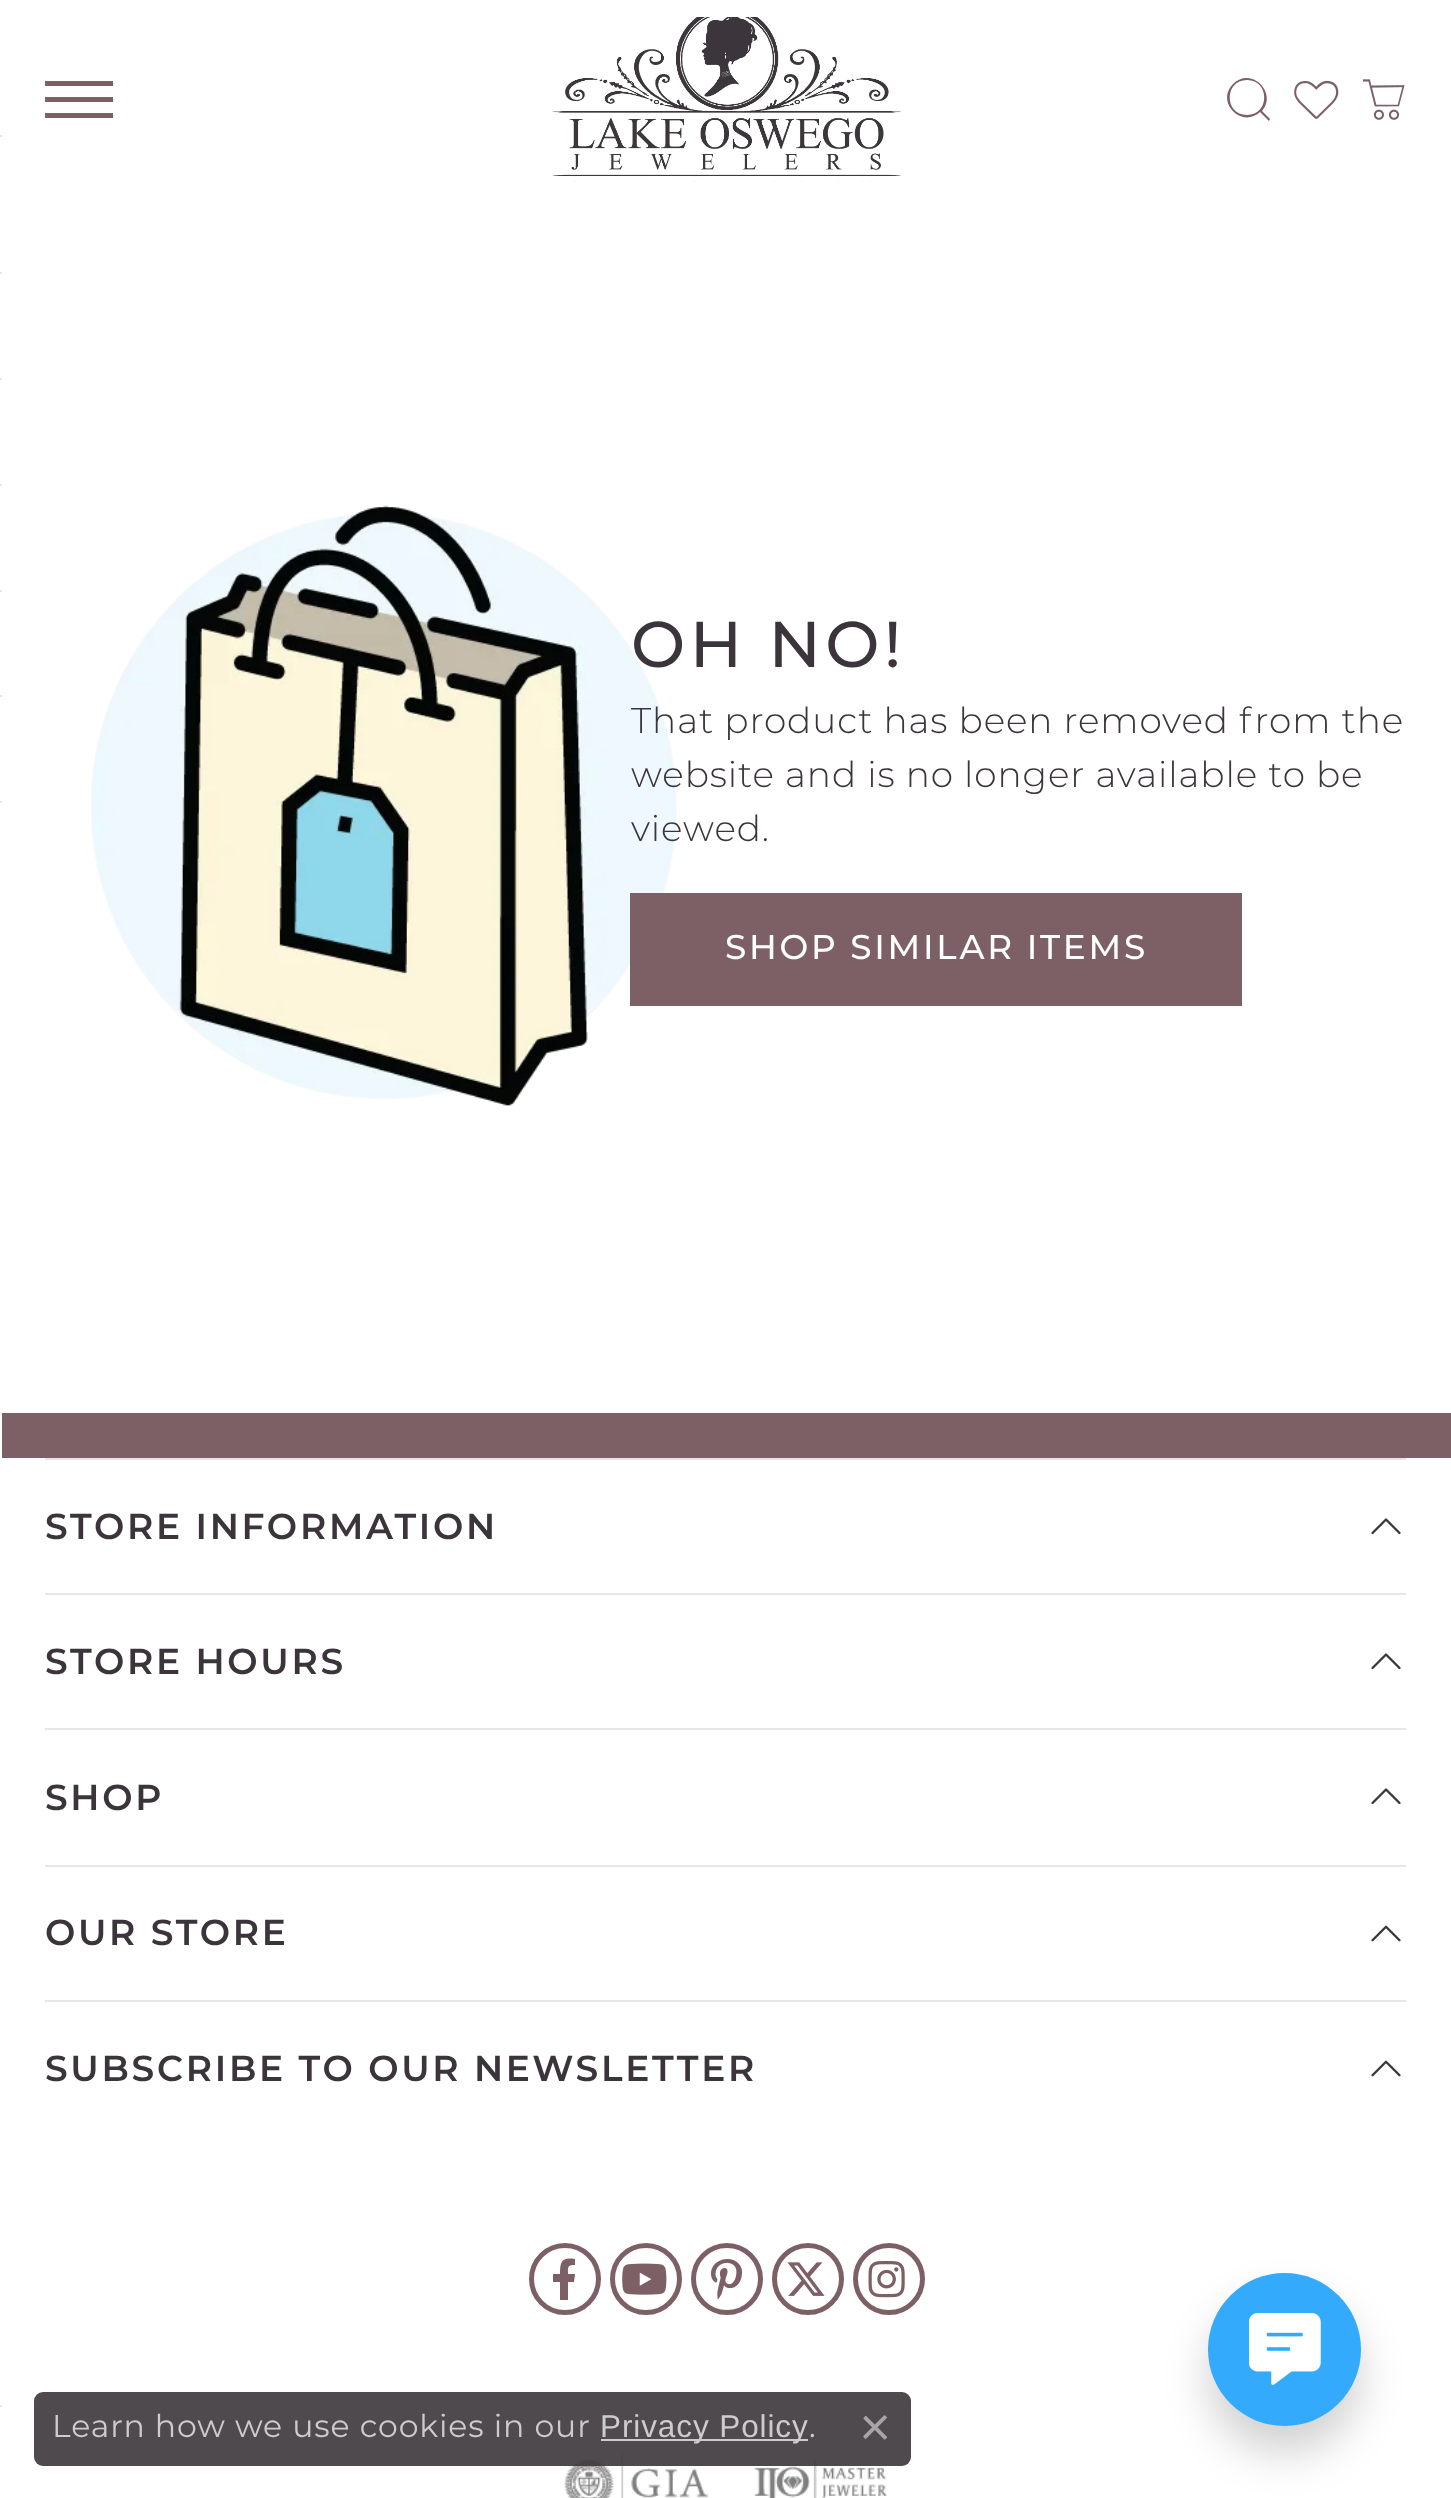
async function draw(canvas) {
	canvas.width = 1451;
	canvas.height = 2498;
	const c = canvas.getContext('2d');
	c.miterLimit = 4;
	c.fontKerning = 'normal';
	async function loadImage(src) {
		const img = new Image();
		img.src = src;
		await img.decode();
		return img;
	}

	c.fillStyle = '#fff';
	c.fillRect(0, 0, 1451, 2498);
	for (const [x, y, w, h, color] of [
		[45, 81, 68, 5, '#7d6065'],
		[45, 97, 68, 5, '#7d6065'],
		[45, 113, 68, 5, '#7d6065'],
	]) {
		c.fillStyle = color;
		c.fillRect(x, y, w, h);
	}
	c.drawImage(await loadImage('img1.png'), 552, 17, 349, 165);
	c.beginPath();
	c.moveTo(1270, 119);
	c.lineTo(1262, 111);
	c.bezierCurveTo(1278, 93, 1251, 66, 1233, 84);
	c.bezierCurveTo(1215, 102, 1242, 129, 1260, 112);
	c.lineTo(1269, 121);
	c.closePath();
	c.moveTo(1247, 115);
	c.bezierCurveTo(1224, 115, 1224, 80, 1247, 80);
	c.bezierCurveTo(1270, 80, 1270, 115, 1247, 115);
	c.closePath();
	c.fill();
	c.drawImage(await loadImage('img2.png'), 1294, 80, 45, 39);
	c.drawImage(await loadImage('img3.png'), 1362, 79, 43, 41);
	for (const [x, y, w, h, color] of [
		[0, 801, 2, 2, '#e6e6e6'],
		[0, 135, 2, 2, '#e6e6e6'],
		[0, 272, 2, 2, '#e6e6e6'],
		[0, 378, 2, 2, '#e6e6e6'],
		[0, 484, 2, 2, '#e6e6e6'],
		[0, 590, 2, 2, '#e6e6e6'],
		[0, 695, 2, 2, '#e6e6e6'],
		[0, 2405, 2, 2, '#e6e4df'],
	]) {
		c.fillStyle = color;
		c.fillRect(x, y, w, h);
	}
	c.drawImage(await loadImage('img4.png'), 91, 505, 586, 601);
	c.letterSpacing = '4.5px';
	c.font = '500 64.5px Montserrat';
	c.fillStyle = '#3b353b';
	c.fillText('OH NO!', 631, 667);
	c.letterSpacing = '0.9px';
	c.font = '300 35.9px Montserrat';
	for (const [text, x, y] of [
		['That product has been removed from the', 631, 733],
		['website and is no longer available to be', 631, 787],
		['viewed.', 631, 841],
	]) {
		c.fillText(text, x, y);
	}
	c.fillStyle = '#7d6065';
	c.fillRect(630, 893, 612, 113);
	c.letterSpacing = '2.7px';
	c.font = '500 34.25px Montserrat';
	c.fillStyle = '#fff';
	c.fillText('SHOP SIMILAR ITEMS', 725, 959);
	c.fillStyle = '#7d6065';
	c.fillRect(2, 1413, 1449, 45);
	c.fillStyle = '#e6e6e6';
	c.fillRect(45, 1458, 1361, 2);
	c.font = '600 36px Montserrat';
	c.fillStyle = '#3b353b';
	c.fillText('STORE INFORMATION', 45, 1539);
	c.drawImage(await loadImage('img5.png'), 1371, 1518, 30, 17);
	c.fillStyle = '#e6e6e6';
	c.fillRect(45, 1593, 1361, 2);
	c.fillStyle = '#3b353b';
	c.fillText('STORE HOURS', 45, 1674);
	c.drawImage(await loadImage('img5.png'), 1371, 1653, 30, 17);
	c.fillStyle = '#e6e6e6';
	c.fillRect(45, 1728, 1361, 2);
	c.fillStyle = '#3b353b';
	c.fillText('SHOP', 45, 1810);
	c.drawImage(await loadImage('img5.png'), 1371, 1788, 30, 17);
	c.fillStyle = '#e6e6e6';
	c.fillRect(45, 1865, 1361, 2);
	c.fillStyle = '#3b353b';
	c.fillText('OUR STORE', 45, 1945);
	c.drawImage(await loadImage('img6.png'), 1371, 1925, 30, 17);
	c.fillStyle = '#e6e6e6';
	c.fillRect(45, 2000, 1361, 2);
	c.fillStyle = '#3b353b';
	c.fillText('SUBSCRIBE TO OUR NEWSLETTER', 45, 2081);
	c.drawImage(await loadImage('img6.png'), 1371, 2060, 30, 17);
	c.beginPath();
	c.arc(565, 2279, 33.5, 0, 2 * Math.PI);
	c.strokeStyle = '#7d6065';
	c.lineWidth = 5;
	c.stroke();
	c.fillStyle = '#7d6065';
	c.beginPath();
	c.moveTo(574, 2282);
	c.lineTo(575, 2274);
	c.lineTo(568, 2274);
	c.bezierCurveTo(568, 2267, 567, 2265, 575, 2265);
	c.lineTo(575, 2259);
	c.bezierCurveTo(562, 2257, 560, 2261, 560, 2274);
	c.lineTo(553, 2274);
	c.lineTo(553, 2282);
	c.lineTo(560, 2282);
	c.lineTo(560, 2300);
	c.lineTo(568, 2300);
	c.lineTo(568, 2282);
	c.closePath();
	c.fill();
	c.beginPath();
	c.arc(646, 2279, 33.5, 0, 2 * Math.PI);
	c.stroke();
	c.drawImage(await loadImage('img7.png'), 622, 2263, 45, 32);
	c.beginPath();
	c.arc(727, 2279, 33.5, 0, 2 * Math.PI);
	c.stroke();
	c.drawImage(await loadImage('img8.png'), 711, 2259, 32, 41);
	c.beginPath();
	c.arc(808, 2279, 33.5, 0, 2 * Math.PI);
	c.stroke();
	c.drawImage(await loadImage('img9.png'), 787, 2262, 38, 34);
	c.beginPath();
	c.arc(889, 2279, 33.5, 0, 2 * Math.PI);
	c.stroke();
	c.drawImage(await loadImage('img10.png'), 868, 2261, 37, 37);
	c.drawImage(await loadImage('img11.png'), 564, 2452, 145, 46);
	c.drawImage(await loadImage('img12.png'), 754, 2461, 133, 37);
	c.fillStyle = '#3c363be6';
	c.beginPath();
	c.roundRect(34, 2392, 877, 74, 9);
	c.fill();
	c.letterSpacing = '0.9px';
	c.font = '31.5px Montserrat';
	c.fillStyle = '#ccc';
	c.fillText('Learn how we use cookies in our', 52, 2437);
	c.fillRect(601, 2439, 207, 2);
	c.font = '31.5px Liberation Sans';
	c.fillText('Privacy Policy', 600, 2437);
	c.font = '31.5px Montserrat';
	c.fillText('.', 809, 2437);
	c.drawImage(await loadImage('img13.png'), 863, 2415, 25, 25);
	c.fillStyle = '#0000002e';
	c.filter = 'blur(21.5px)';
	c.beginPath();
	c.roundRect(1208, 2300, 153, 153, 76.5);
	c.fill();
	c.filter = 'none';
	c.fillStyle = '#33aafc';
	c.beginPath();
	c.arc(1284.5, 2349.5, 76.5, 0, 2 * Math.PI);
	c.fill();
	c.drawImage(await loadImage('img14.png'), 1249, 2313, 72, 72);
}

draw(document.querySelector('canvas'));
